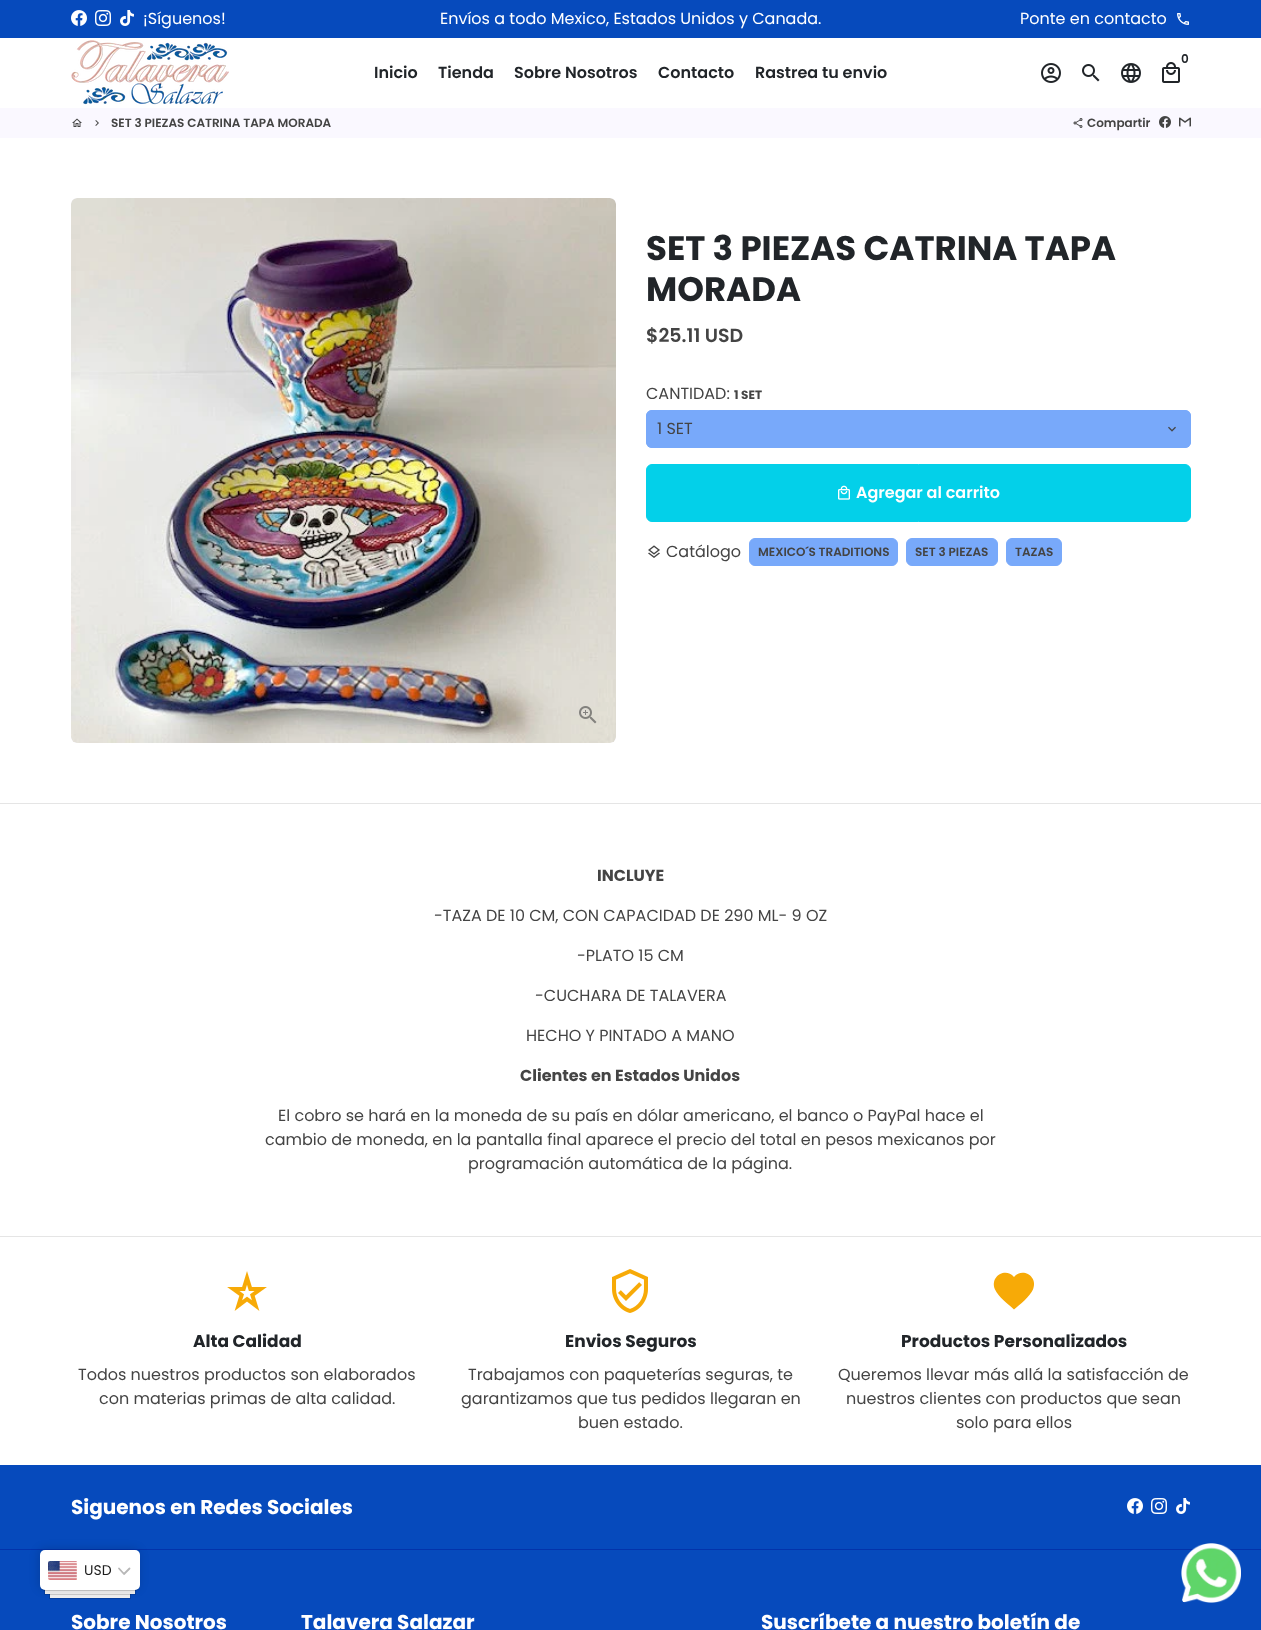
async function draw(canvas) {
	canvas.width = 1261;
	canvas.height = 1630;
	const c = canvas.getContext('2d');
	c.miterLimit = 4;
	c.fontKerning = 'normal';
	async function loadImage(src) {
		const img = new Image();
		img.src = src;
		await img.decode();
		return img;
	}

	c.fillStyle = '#fff';
	c.fillRect(0, 0, 1261, 1630);
	c.fillStyle = '#064abc';
	c.fillRect(0, 0, 1261, 38);
	c.drawImage(await loadImage('img1.png'), 71, 10, 16, 16);
	c.drawImage(await loadImage('img2.png'), 95, 10, 16, 16);
	c.drawImage(await loadImage('img3.png'), 120, 10, 14, 16);
	c.font = '16px Poppins';
	c.fillStyle = '#fff';
	for (const [text, x, y] of [
		['¡Síguenos!', 143, 24],
		['Envíos a todo Mexico, Estados Unidos y Canada.', 440, 24],
		['Ponte en contacto', 1020, 24],
	]) {
		c.fillText(text, x, y);
	}
	c.drawImage(await loadImage('img4.png'), 1177, 13, 12, 12);
	c.drawImage(await loadImage('img5.png'), 71, 40, 158, 65);
	c.font = '600 12px Poppins';
	c.fillStyle = '#212529';
	c.fillText('0', 1181, 63);
	c.drawImage(await loadImage('img6.png'), 1162, 62, 18, 21);
	c.drawImage(await loadImage('img7.png'), 1041, 63, 20, 20);
	c.drawImage(await loadImage('img8.png'), 1082, 64, 18, 18);
	c.drawImage(await loadImage('img9.png'), 1121, 63, 20, 20);
	c.font = '600 16px Poppins';
	for (const [text, x, y] of [
		['Inicio', 374, 78],
		['Tienda', 438, 78],
		['Sobre Nosotros', 514, 78],
		['Contacto', 658, 78],
		['Rastrea tu envio', 755, 78],
	]) {
		c.fillText(text, x, y);
	}
	c.fillStyle = '#faf8ff';
	c.fillRect(0, 108, 1261, 30);
	c.drawImage(await loadImage('img10.png'), 72, 118, 10, 9);
	c.drawImage(await loadImage('img11.png'), 95, 120, 4, 6);
	c.font = '600 12px Poppins';
	c.fillStyle = '#444';
	c.fillText('SET 3 PIEZAS CATRINA TAPA MORADA', 111, 127);
	c.drawImage(await loadImage('img12.png'), 1073, 118, 10, 10);
	c.fillText('Compartir', 1087, 127);
	c.drawImage(await loadImage('img13.png'), 1159, 116, 12, 12);
	c.drawImage(await loadImage('img14.png'), 1179, 117, 12, 10);
	c.fillStyle = '#faf8ff';
	c.beginPath();
	c.roundRect(71, 198, 545, 545, 6);
	c.fill();
	c.drawImage(await loadImage('img15.png'), 71, 198, 545, 545);
	c.drawImage(await loadImage('img16.png'), 579, 706, 18, 18);
	c.font = 'bold 34px Poppins';
	c.fillStyle = '#212529';
	c.fillText('SET 3 PIEZAS CATRINA TAPA', 646, 260);
	c.fillText('MORADA', 646, 301);
	c.font = '600 19px Poppins';
	c.fillStyle = '#444';
	c.fillText('$25.11 USD', 646, 342);
	c.font = '16px Poppins';
	c.fillText('CANTIDAD:', 646, 399);
	c.font = 'bold 12px Poppins';
	c.fillText('1 SET', 734, 399);
	c.fillStyle = '#78a9fa';
	c.beginPath();
	c.roundRect(646, 410, 545, 38, 6);
	c.fill();
	c.drawImage(await loadImage('img17.png'), 1168, 426, 8, 6);
	c.beginPath();
	c.roundRect(646.5, 410.5, 544, 37, 5.5);
	c.strokeStyle = '#78a9fa';
	c.stroke();
	c.font = '16px Poppins';
	c.fillStyle = '#444';
	c.fillText('1 SET', 657, 434);
	c.fillStyle = '#03d0e9';
	c.beginPath();
	c.roundRect(646.5, 464.5, 544, 57, 5.5);
	c.fill();
	c.strokeStyle = '#03d0e9';
	c.stroke();
	c.drawImage(await loadImage('img18.png'), 838, 485, 12, 15);
	c.font = '600 16px Poppins';
	c.fillStyle = '#fff';
	c.fillText('Agregar al carrito', 856, 498);
	c.drawImage(await loadImage('img19.png'), 648, 545, 12, 13);
	c.font = '16px Poppins';
	c.fillStyle = '#444';
	c.fillText('Catálogo', 666, 557);
	c.fillStyle = '#78a9fa';
	c.beginPath();
	c.roundRect(749.5, 538.5, 148, 27, 5.5);
	c.fill();
	c.strokeStyle = '#78a9fa';
	c.stroke();
	c.font = '600 12px Poppins';
	c.fillStyle = '#444';
	c.fillText('MEXICO´S TRADITIONS', 758, 556);
	c.fillStyle = '#78a9fa';
	c.beginPath();
	c.roundRect(906.5, 538.5, 91, 27, 5.5);
	c.fill();
	c.stroke();
	c.fillStyle = '#444';
	c.fillText('SET 3 PIEZAS', 915, 556);
	c.fillStyle = '#78a9fa';
	c.beginPath();
	c.roundRect(1006.5, 538.5, 55, 27, 5.5);
	c.fill();
	c.stroke();
	c.fillStyle = '#444';
	c.fillText('TAZAS', 1015, 556);
	c.fillStyle = '#e5e5e5';
	c.fillRect(0, 803, 1261, 1);
	c.font = 'bold 16px Poppins';
	c.fillStyle = '#444';
	c.fillText('INCLUYE', 597, 881);
	c.font = '16px Poppins';
	for (const [text, x, y] of [
		['-TAZA DE 10 CM, CON CAPACIDAD DE 290 ML- 9 OZ', 434, 921],
		['-PLATO 15 CM', 577, 961],
		['-CUCHARA DE TALAVERA', 535, 1001],
		['HECHO Y PINTADO A MANO', 526, 1041],
	]) {
		c.fillText(text, x, y);
	}
	c.font = 'bold 16px Poppins';
	c.fillText('Clientes en Estados Unidos', 520, 1081);
	c.font = '16px Poppins';
	for (const [text, x, y] of [
		['El cobro se hará en la moneda de su país en dólar americano, el banco o PayPal hace el', 278, 1121],
		['cambio de moneda, en la pantalla final aparece el precio del total en pesos mexicanos por', 265, 1145],
		['programación automática de la página.', 468, 1169],
	]) {
		c.fillText(text, x, y);
	}
	c.fillStyle = '#e5e5e5';
	c.fillRect(0, 1236, 1261, 1);
	c.drawImage(await loadImage('img20.png'), 227, 1271, 40, 40);
	c.font = 'bold 17px Poppins';
	c.fillStyle = '#212529';
	c.fillText('Alta Calidad', 193, 1347);
	c.font = '16px Poppins';
	c.fillStyle = '#444';
	c.fillText('Todos nuestros productos son elaborados', 78, 1380);
	c.fillText('con materias primas de alta calidad.', 99, 1404);
	c.drawImage(await loadImage('img21.png'), 612, 1269, 36, 44);
	c.font = 'bold 17px Poppins';
	c.fillStyle = '#212529';
	c.fillText('Envios Seguros', 565, 1347);
	c.font = '16px Poppins';
	c.fillStyle = '#444';
	for (const [text, x, y] of [
		['Trabajamos con paqueterías seguras, te', 468, 1380],
		['garantizamos que tus pedidos llegaran en', 461, 1404],
		['buen estado.', 578, 1428],
	]) {
		c.fillText(text, x, y);
	}
	c.fillStyle = '#f7aa07';
	c.beginPath();
	c.moveTo(1014, 1309.5);
	c.bezierCurveTo(1008, 1304, 998.5, 1297, 995, 1289.5);
	c.bezierCurveTo(989.5, 1276.5, 1005.5, 1267, 1014, 1277);
	c.bezierCurveTo(1022.5, 1267, 1038.5, 1276.5, 1033, 1289.5);
	c.bezierCurveTo(1029.5, 1297, 1020, 1304.5, 1014, 1309.5);
	c.closePath();
	c.fill();
	c.font = 'bold 17px Poppins';
	c.fillStyle = '#212529';
	c.fillText('Productos Personalizados', 901, 1347);
	c.font = '16px Poppins';
	c.fillStyle = '#444';
	for (const [text, x, y] of [
		['Queremos llevar más allá la satisfacción de', 838, 1380],
		['nuestros clientes con productos que sean', 846, 1404],
		['solo para ellos', 956, 1428],
	]) {
		c.fillText(text, x, y);
	}
	c.fillStyle = '#064abc';
	c.fillRect(0, 1465, 1261, 165);
	c.fillStyle = '#0333ab';
	c.fillRect(0, 1549, 1261, 1);
	c.font = 'bold 20px Poppins';
	c.fillStyle = '#fff';
	c.fillText('Siguenos en Redes Sociales', 71, 1514);
	c.drawImage(await loadImage('img1.png'), 1127, 1498, 16, 16);
	c.drawImage(await loadImage('img2.png'), 1151, 1498, 16, 16);
	c.drawImage(await loadImage('img3.png'), 1176, 1498, 14, 16);
	for (const [text, x, y] of [
		['Sobre Nosotros', 71, 1629],
		['Talavera Salazar', 301, 1629],
		['Suscríbete a nuestro boletín de', 761, 1629],
	]) {
		c.fillText(text, x, y);
	}
	c.drawImage(await loadImage('img22.png'), 1181, 1543, 60, 60);
	c.fillStyle = '#00000026';
	c.filter = 'blur(0.5px)';
	c.beginPath();
	c.rect(49, 1577, 82, 22);
	c.fill();
	c.filter = 'none';
	c.fillStyle = '#eee';
	c.fillRect(50, 1594, 80, 4);
	c.fillStyle = '#00000026';
	c.filter = 'blur(0.5px)';
	c.beginPath();
	c.roundRect(44, 1563, 92, 32, 1);
	c.fill();
	c.filter = 'none';
	c.fillStyle = '#eee';
	c.fillRect(45, 1590, 90, 4);
	c.fillStyle = '#00000026';
	c.filter = 'blur(0.5px)';
	c.beginPath();
	c.roundRect(40, 1551, 100, 40, 5);
	c.fill();
	c.filter = 'none';
	c.filter = 'blur(5px)';
	c.beginPath();
	c.roundRect(39, 1549, 100, 40, 5);
	c.fill();
	c.filter = 'none';
	c.fillStyle = '#fff';
	c.beginPath();
	c.roundRect(40, 1550, 100, 40, 5);
	c.fill();
	c.drawImage(await loadImage('img23.png'), 48, 1561, 29, 19);
	c.font = '14px Poppins';
	c.fillStyle = '#1e1e1e';
	c.fillText('USD', 84, 1575);
	c.beginPath();
	c.moveTo(119, 1568.5);
	c.lineTo(124, 1574);
	c.lineTo(129.5, 1568.5);
	c.strokeStyle = '#b7b7b7';
	c.lineWidth = 1.8;
	c.lineCap = 'round';
	c.lineJoin = 'round';
	c.stroke();
}

draw(document.querySelector('canvas'));
